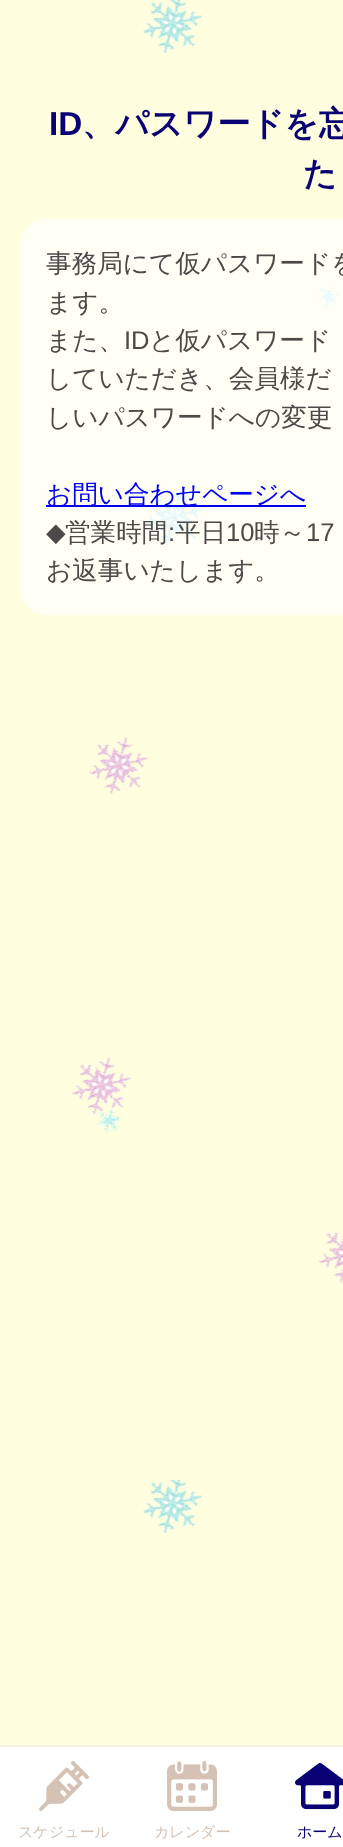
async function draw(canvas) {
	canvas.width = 343;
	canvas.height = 1847;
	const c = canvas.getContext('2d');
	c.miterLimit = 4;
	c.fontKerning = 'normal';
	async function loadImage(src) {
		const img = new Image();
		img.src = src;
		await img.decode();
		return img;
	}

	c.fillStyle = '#fff';
	c.fillRect(0, 0, 343, 1847);
	c.drawImage(await loadImage('img1.png'), 0, 0, 343, 1745);
	c.font = 'bold 33.25px Liberation Sans';
	c.fillStyle = '#080073';
	c.fillText('ID', 49, 135);
	c.font = 'bold 33.25px WenQuanYi Zen Hei';
	c.fillText('、パスワードを忘', 82, 135);
	c.fillText('た', 303, 185);
	c.fillStyle = '#ffffffb3';
	c.beginPath();
	c.roundRect(20, 219, 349, 396, 26);
	c.fill();
	c.font = '500 25.6px WenQuanYi Zen Hei';
	c.fillStyle = '#4e4949';
	for (const [text, x, y] of [
		['事務局にて仮パスワードを', 46, 272],
		['ます。', 46, 311],
		['また、', 46, 349],
	]) {
		c.fillText(text, x, y);
	}
	c.font = '25.6px Liberation Sans';
	c.fillText('ID', 124, 349);
	c.font = '500 25.6px WenQuanYi Zen Hei';
	for (const [text, x, y] of [
		['と仮パスワード', 149, 349],
		['していただき、会員様だ', 46, 387],
		['しいパスワードへの変更', 46, 426],
	]) {
		c.fillText(text, x, y);
	}
	c.fillStyle = '#00e';
	c.fillRect(46, 505, 260, 2);
	c.fillText('お問い合わせページへ', 46, 503);
	c.font = '25.6px DejaVu Sans';
	c.fillStyle = '#4e4949';
	c.fillText('◆', 46, 541);
	c.font = '500 25.6px WenQuanYi Zen Hei';
	c.fillText('営業時間', 65, 541);
	c.font = '25.6px Liberation Sans';
	c.fillText(':', 168, 541);
	c.font = '500 25.6px WenQuanYi Zen Hei';
	c.fillText('平日', 175, 541);
	c.font = '25.6px Liberation Sans';
	c.fillText('10', 226, 541);
	c.font = '500 25.6px WenQuanYi Zen Hei';
	c.fillText('時～', 254, 541);
	c.font = '25.6px Liberation Sans';
	c.fillText('17', 306, 541);
	c.font = '500 25.6px WenQuanYi Zen Hei';
	c.fillText('お返事いたします。', 46, 579);
	c.fillStyle = '#f5eee5';
	c.fillRect(0, 1745, 343, 2);
	c.drawImage(await loadImage('img2.png'), 39, 1761, 50, 50);
	c.font = '500 15px WenQuanYi Zen Hei';
	c.fillStyle = '#d5c2b4';
	c.fillText('スケジュール', 18, 1837);
	c.drawImage(await loadImage('img3.png'), 167, 1761, 50, 50);
	c.fillText('カレンダー', 154, 1837);
	c.drawImage(await loadImage('img4.png'), 295, 1763, 48, 47);
	c.fillStyle = '#080073';
	c.fillText('ホーム', 297, 1837);
}

draw(document.querySelector('canvas'));
